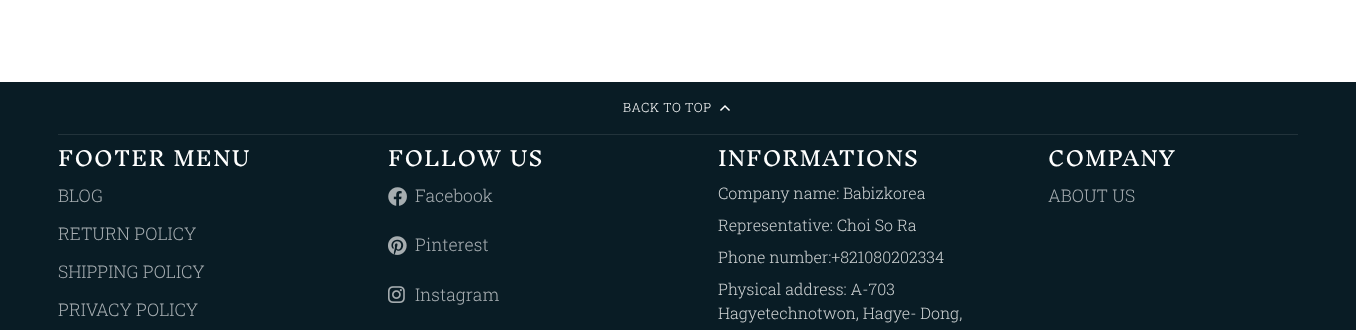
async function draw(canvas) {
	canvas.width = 1356;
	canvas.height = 330;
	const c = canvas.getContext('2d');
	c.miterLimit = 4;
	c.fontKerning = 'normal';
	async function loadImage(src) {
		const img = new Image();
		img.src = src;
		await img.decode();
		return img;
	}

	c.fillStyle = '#fff';
	c.fillRect(0, 0, 1356, 330);
	c.fillStyle = '#091c25';
	c.fillRect(0, 82, 1356, 248);
	c.letterSpacing = '0.6px';
	c.font = '300 12.75px Roboto Slab';
	c.fillStyle = '#fff';
	c.fillText('BACK TO TOP', 623, 112);
	c.beginPath();
	c.moveTo(729, 110);
	c.lineTo(725, 106);
	c.lineTo(721, 110);
	c.strokeStyle = '#fff';
	c.lineWidth = 1.5;
	c.lineCap = 'square';
	c.stroke();
	c.fillStyle = '#22333b';
	c.fillRect(58, 134, 1240, 1);
	c.letterSpacing = '1px';
	c.wordSpacing = '1px';
	c.font = '20px Inknut Antiqua';
	c.fillStyle = '#fff';
	c.fillText('FOOTER MENU', 58, 166);
	c.letterSpacing = '0px';
	c.wordSpacing = '0px';
	c.font = '300 17.5px Roboto Slab';
	c.fillStyle = '#a6adb1';
	for (const [text, x, y] of [
		['BLOG', 58, 202],
		['RETURN POLICY', 58, 240],
		['SHIPPING POLICY', 58, 278],
		['PRIVACY POLICY', 58, 316],
	]) {
		c.fillText(text, x, y);
	}
	c.letterSpacing = '1px';
	c.wordSpacing = '1px';
	c.font = '20px Inknut Antiqua';
	c.fillStyle = '#fff';
	c.fillText('FOLLOW US', 388, 166);
	c.drawImage(await loadImage('img1.png'), 388, 187, 19, 19);
	c.letterSpacing = '0px';
	c.wordSpacing = '0px';
	c.font = '300 17.5px Roboto Slab';
	c.fillStyle = '#a6adb1';
	c.fillText('Facebook', 415, 202);
	c.drawImage(await loadImage('img2.png'), 388, 236, 19, 19);
	c.fillText('Pinterest', 415, 251);
	c.drawImage(await loadImage('img3.png'), 388, 286, 17, 17);
	c.fillText('Instagram', 415, 301);
	c.letterSpacing = '1px';
	c.font = '20px Inknut Antiqua';
	c.fillStyle = '#fff';
	c.fillText('INFORMATIONS', 718, 166);
	c.letterSpacing = '0px';
	c.font = '300 16px Roboto Slab';
	c.fillStyle = '#ced2d3';
	for (const [text, x, y] of [
		['Company name: Babizkorea', 718, 199],
		['Representative: Choi So Ra', 718, 231],
		['Phone number:+821080202334', 718, 263],
		['Physical address: A-703', 718, 295],
		['Hagyetechnotwon, Hagye- Dong,', 718, 319],
	]) {
		c.fillText(text, x, y);
	}
	c.letterSpacing = '1px';
	c.font = '20px Inknut Antiqua';
	c.fillStyle = '#fff';
	c.fillText('COMPANY', 1048, 166);
	c.letterSpacing = '0px';
	c.font = '300 17.5px Roboto Slab';
	c.fillStyle = '#a6adb1';
	c.fillText('ABOUT US', 1048, 202);
}

draw(document.querySelector('canvas'));
